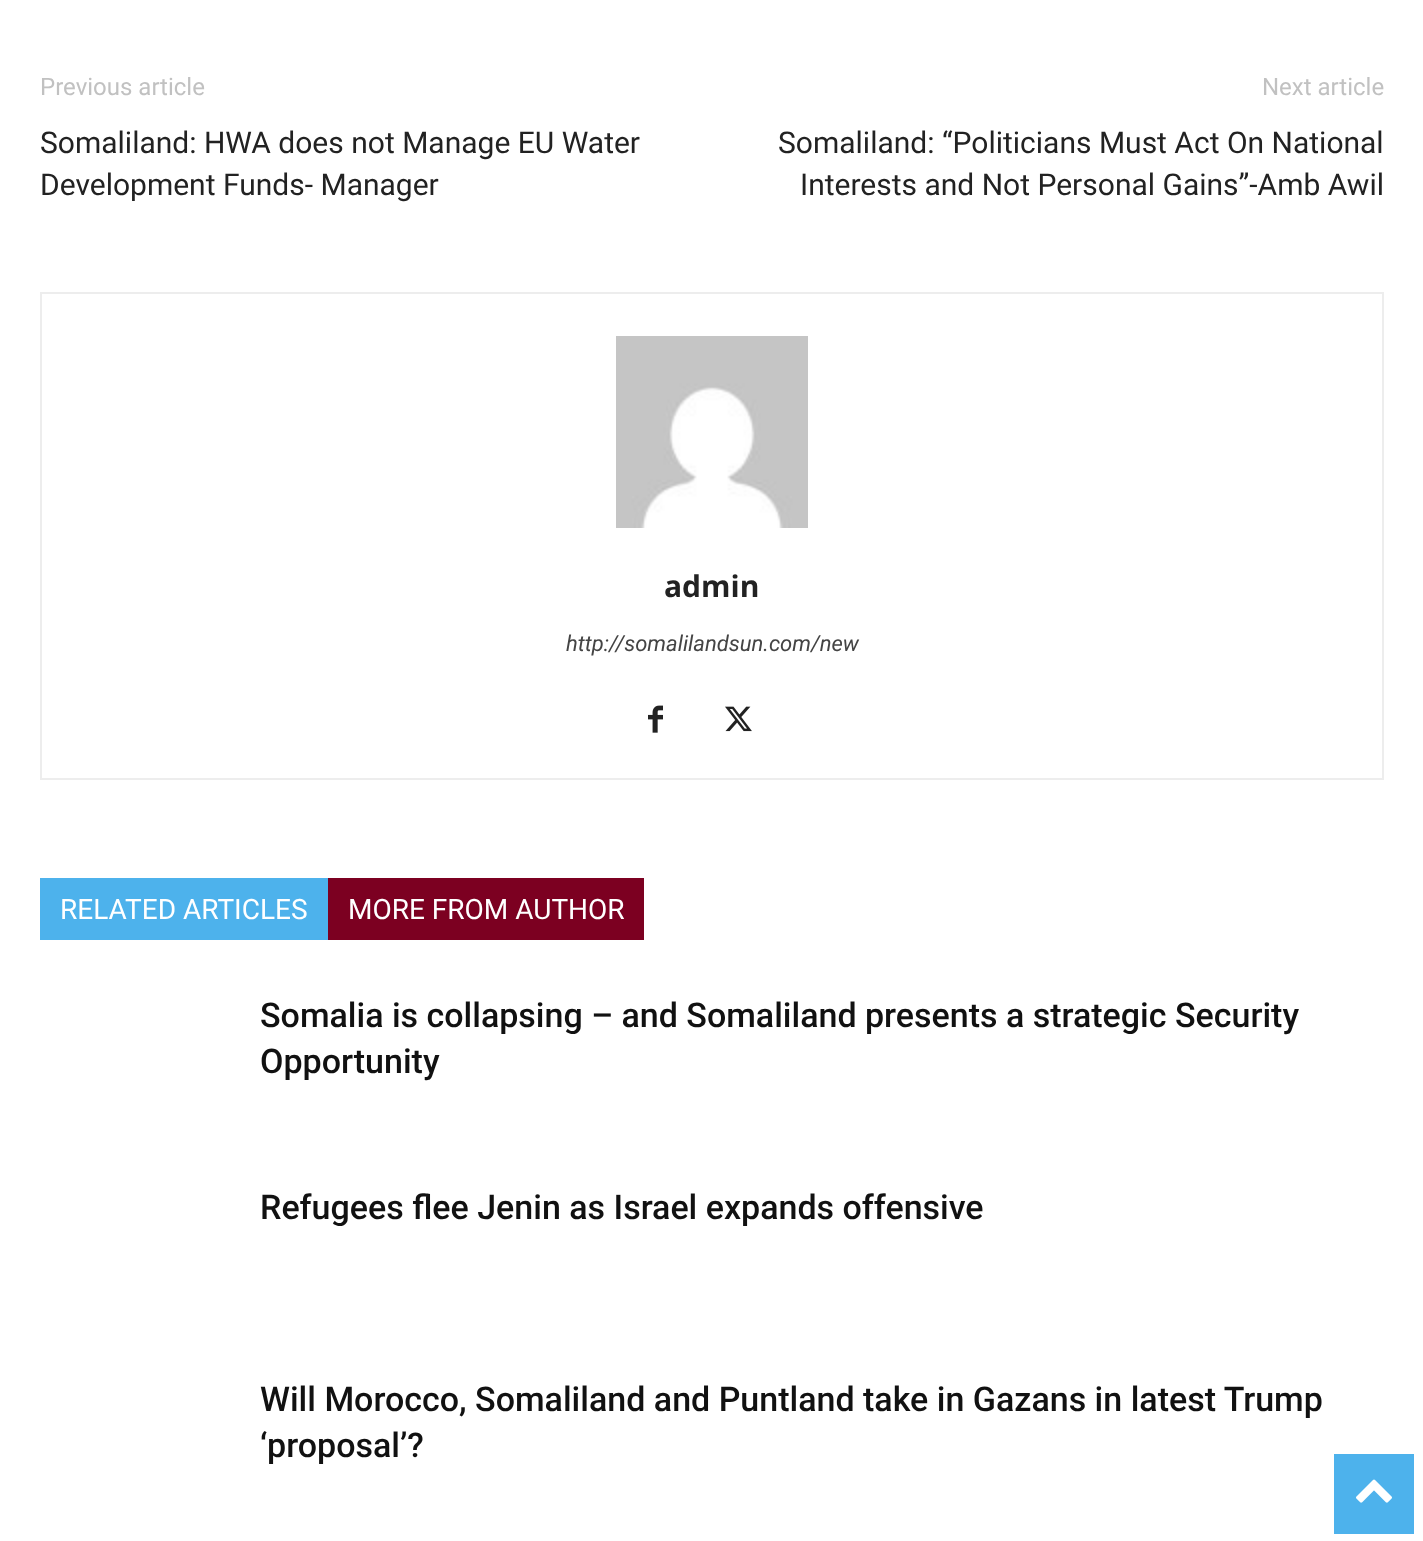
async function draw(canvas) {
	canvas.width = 1423;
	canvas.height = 1541;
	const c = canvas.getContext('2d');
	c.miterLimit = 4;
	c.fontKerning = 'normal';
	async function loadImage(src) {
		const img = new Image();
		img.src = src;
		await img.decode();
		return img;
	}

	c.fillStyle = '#fff';
	c.fillRect(0, 0, 1423, 1541);
	c.font = '24px Roboto';
	c.fillStyle = '#c1c1c1';
	c.fillText('Previous article', 40, 95);
	c.font = '30px Roboto';
	c.fillStyle = '#222';
	c.fillText('Somaliland: HWA does not Manage EU Water', 40, 153);
	c.fillText('Development Funds- Manager', 40, 195);
	c.font = '24px Roboto';
	c.fillStyle = '#c1c1c1';
	c.fillText('Next article', 1262, 95);
	c.font = '30px Roboto';
	c.fillStyle = '#222';
	c.fillText('Somaliland: “Politicians Must Act On National', 778, 153);
	c.fillText('Interests and Not Personal Gains”-Amb Awil', 800, 195);
	c.strokeStyle = '#ededed';
	c.lineWidth = 2;
	c.strokeRect(41, 293, 1342, 486);
	c.drawImage(await loadImage('img1.png'), 616, 336, 192, 192);
	c.font = 'bold 30px Open Sans';
	c.fillText('admin', 664, 597);
	c.font = 'italic 22px Roboto';
	c.fillStyle = '#444';
	c.fillText('http://somalilandsun.com/new', 566, 651);
	c.drawImage(await loadImage('img2.png'), 648, 705, 15, 28);
	c.drawImage(await loadImage('img3.png'), 725, 706, 27, 26);
	c.fillStyle = '#4db2ec';
	c.fillRect(40, 878, 288, 62);
	c.font = '28px Roboto';
	c.fillStyle = '#fff';
	c.fillText('RELATED ARTICLES', 60, 919);
	c.fillStyle = '#7c0021';
	c.fillRect(328, 878, 316, 62);
	c.fillStyle = '#fff';
	c.fillText('MORE FROM AUTHOR', 348, 919);
	c.font = '500 34px Roboto';
	c.fillStyle = '#111';
	for (const [text, x, y] of [
		['Somalia is collapsing – and Somaliland presents a strategic Security', 260, 1027],
		['Opportunity', 260, 1073],
		['Refugees flee Jenin as Israel expands offensive', 260, 1219],
		['Will Morocco, Somaliland and Puntland take in Gazans in latest Trump', 260, 1411],
		['‘proposal’?', 260, 1457],
	]) {
		c.fillText(text, x, y);
	}
	c.fillStyle = '#4db2ec';
	c.fillRect(1334, 1454, 80, 80);
	c.drawImage(await loadImage('img4.png'), 1356, 1479, 36, 24);
}

draw(document.querySelector('canvas'));
